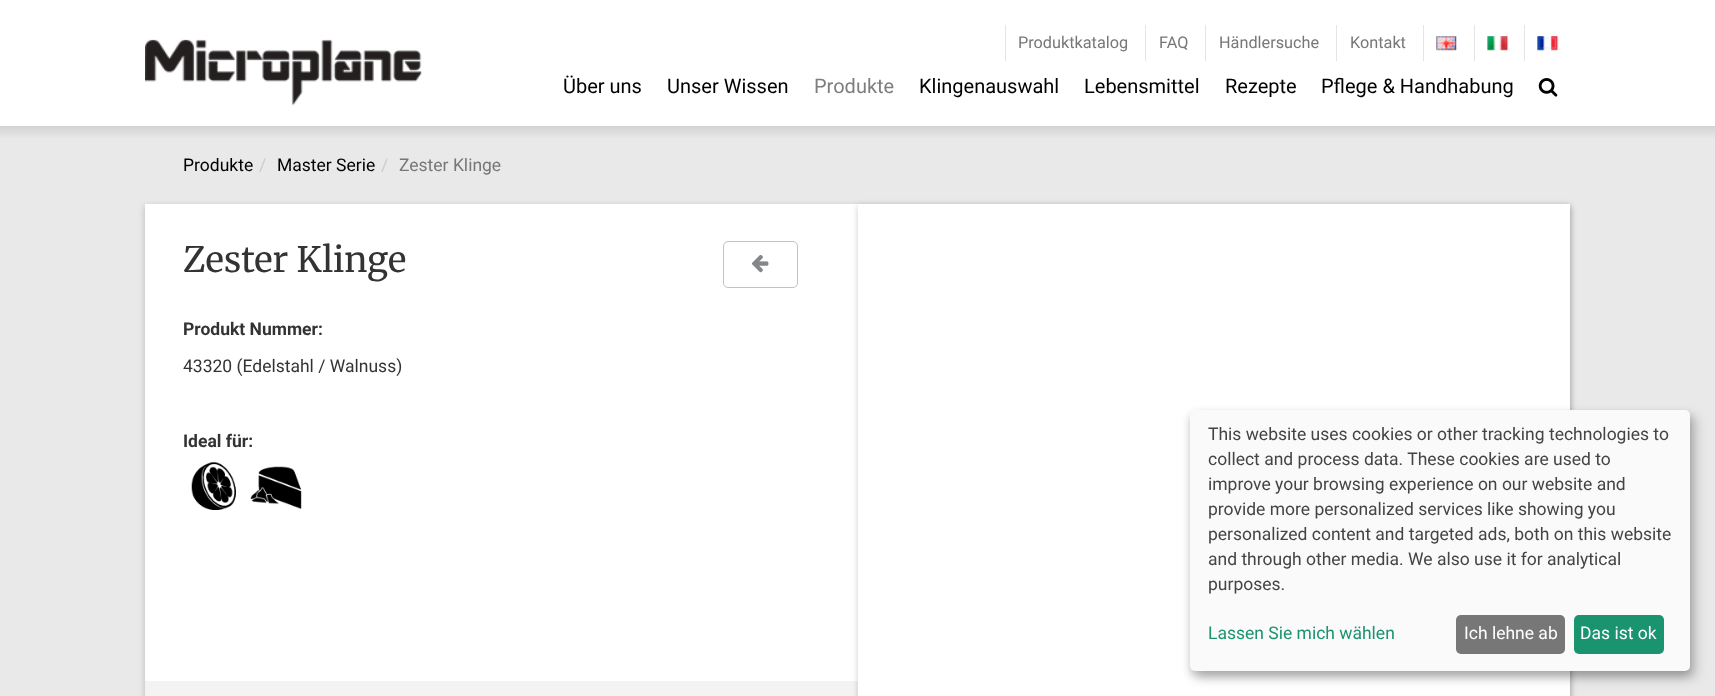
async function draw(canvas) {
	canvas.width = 1715;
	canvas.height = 696;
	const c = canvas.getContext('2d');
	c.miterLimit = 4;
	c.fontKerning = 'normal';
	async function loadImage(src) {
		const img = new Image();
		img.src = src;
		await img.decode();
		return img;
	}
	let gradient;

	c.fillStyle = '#e9e9e9';
	c.fillRect(0, 0, 1715, 696);
	c.fillStyle = '#fff';
	c.fillRect(0, 0, 1715, 126);
	c.drawImage(await loadImage('img1.png'), 145, 39, 277, 67);
	c.fillStyle = '#e5e5e5';
	c.fillRect(1005, 25, 1, 36);
	c.font = '16.25px Roboto';
	c.fillStyle = '#777';
	c.fillText('Produktkatalog', 1018, 48);
	c.fillStyle = '#e5e5e5';
	c.fillRect(1145, 25, 1, 36);
	c.fillStyle = '#777';
	c.fillText('FAQ', 1159, 48);
	c.fillStyle = '#e5e5e5';
	c.fillRect(1205, 25, 1, 36);
	c.fillStyle = '#777';
	c.fillText('Händlersuche', 1219, 48);
	c.fillStyle = '#e5e5e5';
	c.fillRect(1336, 25, 1, 36);
	c.fillStyle = '#777';
	c.fillText('Kontakt', 1350, 48);
	c.fillStyle = '#e5e5e5';
	c.fillRect(1423, 25, 1, 36);
	c.drawImage(await loadImage('img2.png'), 1436, 36, 21, 15);
	c.fillRect(1474, 25, 1, 36);
	c.drawImage(await loadImage('img3.png'), 1487, 36, 22, 15);
	c.fillRect(1524, 25, 1, 36);
	c.drawImage(await loadImage('img4.png'), 1537, 36, 22, 15);
	c.font = '20px Roboto';
	c.fillStyle = '#000';
	c.fillText('Über uns', 563, 93);
	c.fillText('Unser Wissen', 667, 93);
	c.fillStyle = '#7e7e7e';
	c.fillText('Produkte', 814, 93);
	c.fillStyle = '#000';
	for (const [text, x, y] of [
		['Klingenauswahl', 919, 93],
		['Lebensmittel', 1084, 93],
		['Rezepte', 1225, 93],
		['Pflege & Handhabung', 1321, 93],
	]) {
		c.fillText(text, x, y);
	}
	c.drawImage(await loadImage('img5.png'), 1538, 78, 20, 19);
	gradient = c.createLinearGradient(858, 126, 858, 139);
	gradient.addColorStop(0, '#d2d2d2');
	gradient.addColorStop(1, '#e9e9e9');
	c.fillStyle = gradient;
	c.fillRect(0, 126, 1715, 12);
	c.font = '17.5px Roboto';
	c.fillStyle = '#000';
	c.fillText('Produkte', 183, 171);
	c.fillStyle = '#ccc';
	c.fillText('/', 259, 171);
	c.fillStyle = '#000';
	c.fillText('Master Serie', 277, 171);
	c.fillStyle = '#ccc';
	c.fillText('/', 381, 171);
	c.fillStyle = '#777';
	c.fillText('Zester Klinge', 399, 171);
	c.fillStyle = '#00000033';
	c.filter = 'blur(3px)';
	c.beginPath();
	c.rect(145, 206, 1425, 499);
	c.fill();
	c.filter = 'none';
	c.fillStyle = '#fff';
	c.fillRect(145, 204, 1425, 492);
	c.font = '300 35px Merriweather';
	c.fillStyle = '#333';
	c.fillText('Zester Klinge', 183, 272);
	c.beginPath();
	c.roundRect(723.5, 241.5, 74, 46, 4.5);
	c.strokeStyle = '#c2c3c4';
	c.stroke();
	c.drawImage(await loadImage('img6.png'), 752, 254, 17, 19);
	c.font = 'bold 17.5px Roboto';
	c.fillText('Produkt Nummer:', 183, 335);
	c.font = '17.5px Roboto';
	c.fillText('43320 (Edelstahl / Walnuss)', 183, 372);
	c.font = 'bold 17.5px Roboto';
	c.fillText('Ideal für:', 183, 447);
	c.drawImage(await loadImage('img7.png'), 191, 461, 45, 49);
	c.drawImage(await loadImage('img8.png'), 250, 466, 52, 44);
	c.fillStyle = '#f3f3f3';
	c.fillRect(145, 681, 713, 15);
	c.save();
	c.beginPath();
	c.moveTo(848, 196);
	c.lineTo(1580, 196);
	c.lineTo(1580, 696);
	c.lineTo(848, 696);
	c.closePath();
	c.moveTo(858, 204);
	c.lineTo(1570, 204);
	c.lineTo(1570, 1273);
	c.lineTo(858, 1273);
	c.closePath();
	c.clip('evenodd');
	c.fillStyle = '#00000033';
	c.filter = 'blur(3px)';
	c.beginPath();
	c.rect(858, 206, 712, 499);
	c.fill();
	c.filter = 'none';
	c.restore();
	c.fillStyle = '#00000030';
	c.filter = 'blur(6px)';
	c.beginPath();
	c.roundRect(1196, 416, 500, 262, 5);
	c.fill();
	c.filter = 'none';
	c.fillStyle = '#00000033';
	c.filter = 'blur(4px)';
	c.beginPath();
	c.roundRect(1190, 415, 500, 261, 5);
	c.fill();
	c.filter = 'none';
	c.fillStyle = '#fafafa';
	c.beginPath();
	c.roundRect(1190, 410, 500, 261, 5);
	c.fill();
	c.font = '17.5px Roboto';
	c.fillStyle = '#444';
	for (const [text, x, y] of [
		['This website uses cookies or other tracking technologies to', 1208, 440],
		['collect and process data. These cookies are used to', 1208, 465],
		['improve your browsing experience on our website and', 1208, 490],
		['provide more personalized services like showing you', 1208, 515],
		['personalized content and targeted ads, both on this website', 1208, 540],
		['and through other media. We also use it for analytical', 1208, 565],
		['purposes.', 1208, 590],
	]) {
		c.fillText(text, x, y);
	}
	c.fillStyle = '#1a936f';
	c.fillText('Lassen Sie mich wählen', 1208, 639);
	c.fillStyle = '#777';
	c.beginPath();
	c.roundRect(1456, 615, 109, 39, 5);
	c.fill();
	c.fillStyle = '#fff';
	c.fillText('Ich lehne ab', 1464, 639);
	c.fillStyle = '#1a936f';
	c.beginPath();
	c.roundRect(1574, 615, 90, 39, 5);
	c.fill();
	c.fillStyle = '#fff';
	c.fillText('Das ist ok', 1580, 639);
}

draw(document.querySelector('canvas'));
